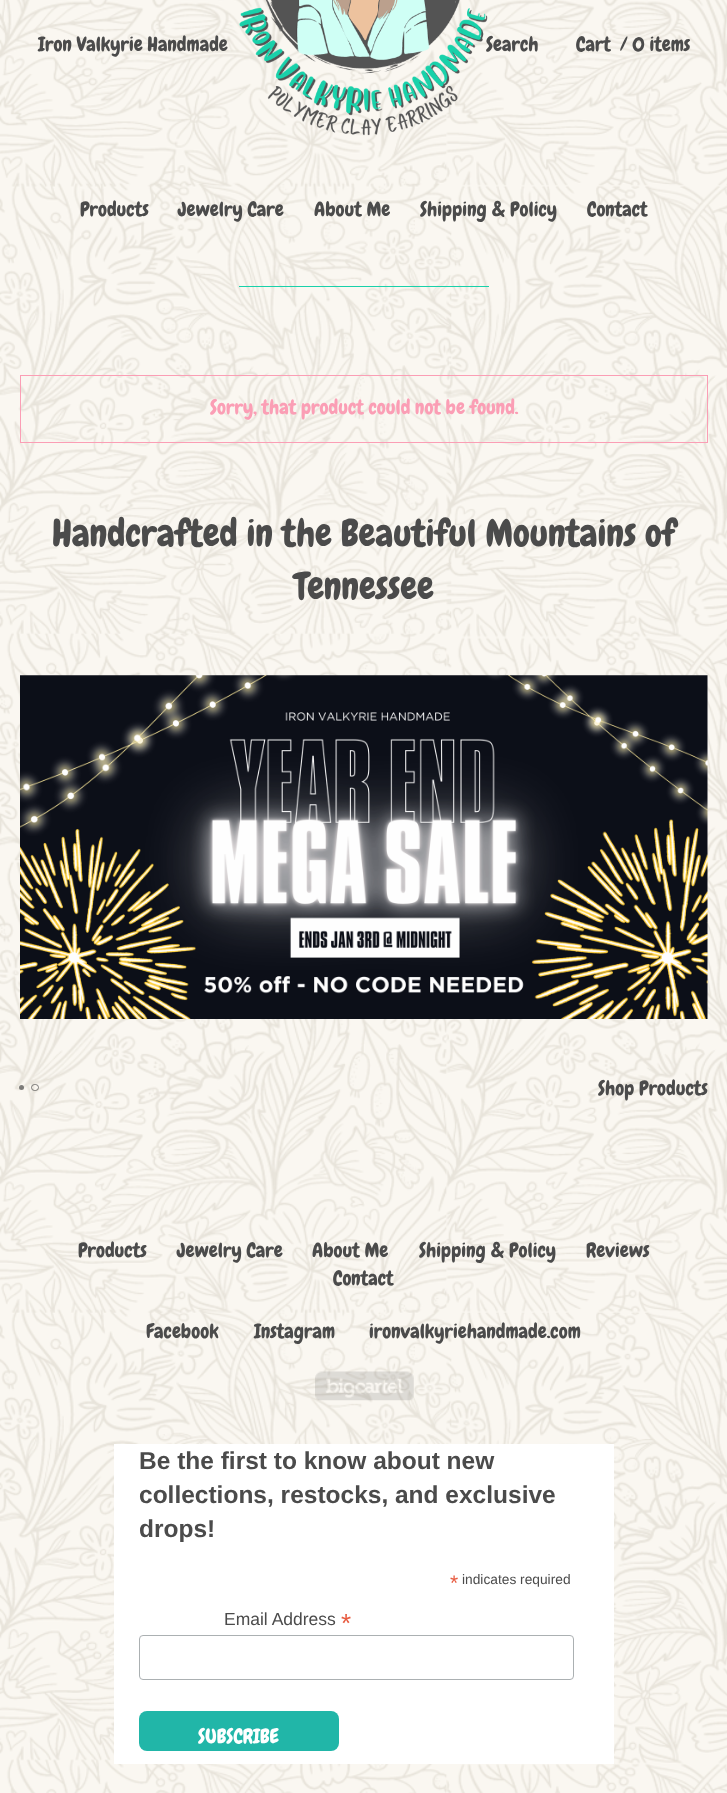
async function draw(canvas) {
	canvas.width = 727;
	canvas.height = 1793;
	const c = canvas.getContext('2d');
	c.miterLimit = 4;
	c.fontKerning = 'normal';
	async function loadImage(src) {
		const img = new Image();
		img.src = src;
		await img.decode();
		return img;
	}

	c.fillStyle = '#fff';
	c.fillRect(0, 0, 727, 1793);
	c.drawImage(await loadImage('img1.png'), 0, 0, 727, 1793);
	c.font = '20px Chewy';
	c.fillStyle = '#4b4b4b';
	c.fillText('Iron Valkyrie Handmade', 38, 51);
	c.drawImage(await loadImage('img2.png'), 239, 0, 249, 136);
	for (const [text, x, y] of [
		['Search', 486, 51],
		['Cart', 576, 51],
		['/ 0 items', 620, 51],
		['Products', 80, 216],
		['Jewelry Care', 178, 216],
		['About Me', 314, 216],
		['Shipping & Policy', 420, 216],
		['Contact', 587, 216],
	]) {
		c.fillText(text, x, y);
	}
	c.fillStyle = '#19d1aa';
	c.fillRect(239, 286, 250, 1);
	c.strokeStyle = '#fb9eb5';
	c.strokeRect(20.5, 375.5, 687, 67);
	c.fillStyle = '#fb9eb5';
	c.fillText('Sorry, that product could not be found.', 210, 414);
	c.font = '37.5px Chewy';
	c.fillStyle = '#4b4b4b';
	c.fillText('Handcrafted in the Beautiful Mountains of', 52, 546);
	c.fillText('Tennessee', 294, 599);
	c.drawImage(await loadImage('img3.png'), 20, 675, 688, 344);
	c.fillStyle = '#4b4b4bb3';
	c.beginPath();
	c.arc(21.5, 1087.5, 2.5, 0, 2 * Math.PI);
	c.fill();
	c.beginPath();
	c.roundRect(31.5, 1084.5, 7, 6, 3);
	c.strokeStyle = '#4b4b4bb3';
	c.stroke();
	c.font = '20px Chewy';
	c.fillStyle = '#4b4b4b';
	for (const [text, x, y] of [
		['Shop Products', 598, 1095],
		['Products', 78, 1257],
		['Jewelry Care', 177, 1257],
		['About Me', 312, 1257],
		['Shipping & Policy', 419, 1257],
		['Reviews', 586, 1257],
		['Contact', 333, 1285],
		['Facebook', 146, 1338],
		['Instagram', 254, 1338],
		['ironvalkyriehandmade.com', 369, 1338],
	]) {
		c.fillText(text, x, y);
	}
	c.drawImage(await loadImage('img4.png'), 315, 1371, 99, 30);
	c.fillStyle = '#fff';
	c.fillRect(114, 1444, 500, 320);
	c.font = 'bold 24.5px Liberation Sans';
	c.fillStyle = '#4b4b4b';
	for (const [text, x, y] of [
		['Be the first to know about new', 139, 1469],
		['collections, restocks, and exclusive', 139, 1503],
		['drops!', 139, 1537],
	]) {
		c.fillText(text, x, y);
	}
	c.font = '21px Liberation Sans';
	c.fillStyle = '#e85c41';
	c.fillText('*', 450, 1590);
	c.font = '13.75px Liberation Sans';
	c.fillStyle = '#4b4b4b';
	c.fillText('indicates required', 462, 1584);
	c.font = '17.5px Liberation Sans';
	c.fillText('Email Address', 224, 1625);
	c.font = '26px Liberation Sans';
	c.fillStyle = '#e85c41';
	c.fillText('*', 341, 1632);
	c.beginPath();
	c.roundRect(139.5, 1635.5, 434, 44, 3.5);
	c.strokeStyle = '#abb0b2';
	c.stroke();
	c.fillStyle = '#21b6a8';
	c.beginPath();
	c.roundRect(139, 1711, 200, 40, 8);
	c.fill();
	c.font = '20px Chewy';
	c.fillStyle = '#fff';
	c.fillText('SUBSCRIBE', 198, 1743);
}

draw(document.querySelector('canvas'));
